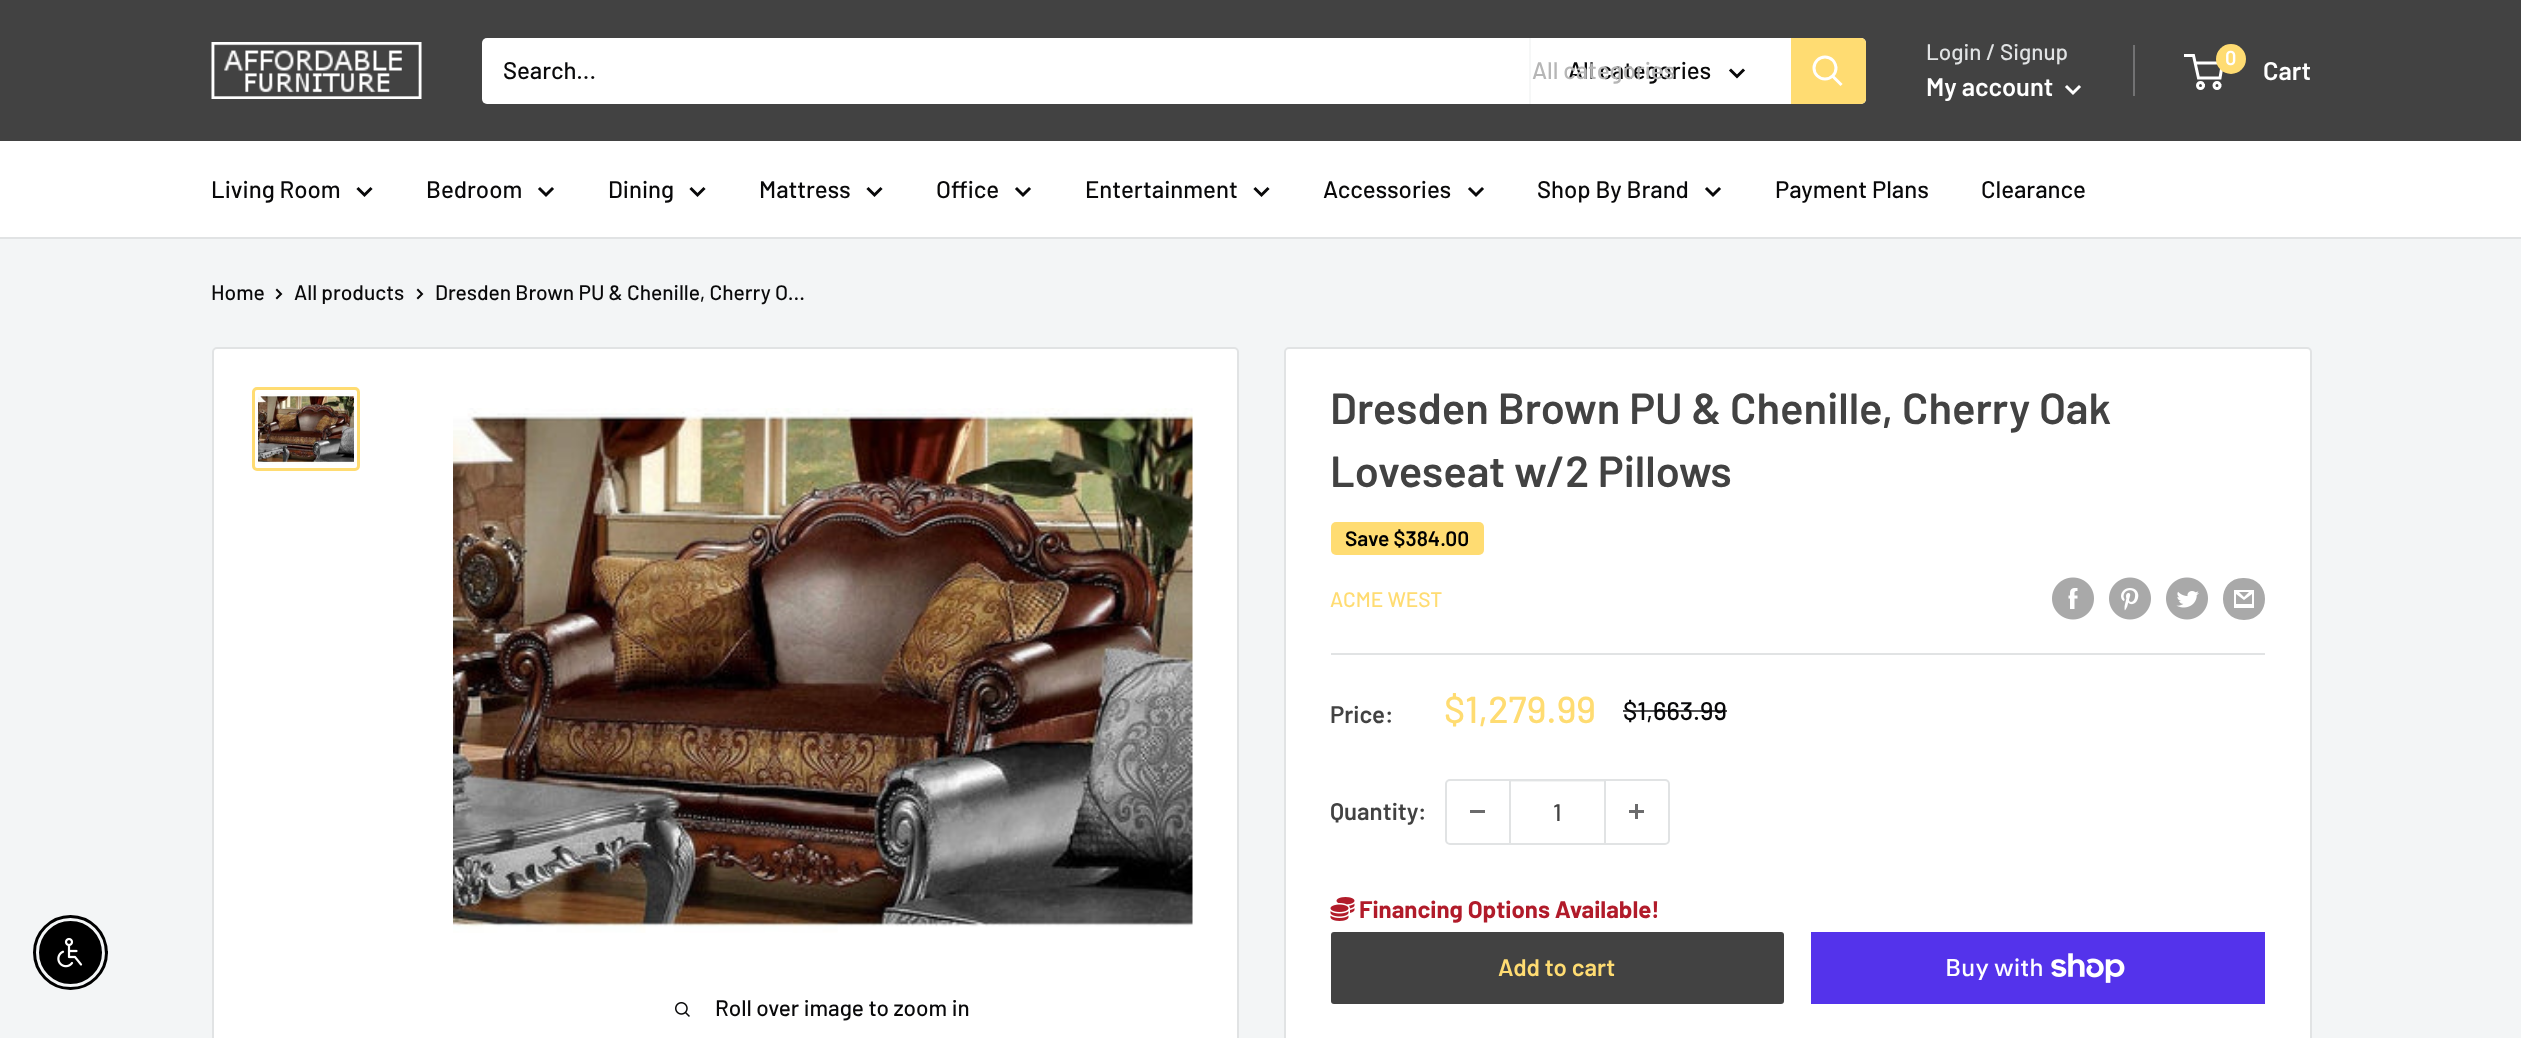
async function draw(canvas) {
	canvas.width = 2521;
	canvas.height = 1038;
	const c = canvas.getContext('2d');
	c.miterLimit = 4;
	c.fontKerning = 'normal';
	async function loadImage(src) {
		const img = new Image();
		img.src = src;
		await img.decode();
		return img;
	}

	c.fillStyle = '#f3f5f6';
	c.fillRect(0, 0, 2521, 1038);
	c.fillStyle = '#424242';
	c.fillRect(0, 0, 2521, 141);
	c.drawImage(await loadImage('img1.png'), 211, 42, 211, 57);
	c.fillStyle = '#fff';
	c.beginPath();
	c.roundRect(482, 38, 1384, 66, 5);
	c.fill();
	c.font = '500 24px Barlow';
	c.fillStyle = '#09090a';
	c.fillText('Search...', 503, 79);
	c.fillStyle = '#f6f7f7';
	c.fillRect(1529, 38, 2, 66);
	c.fillStyle = '#09090a';
	c.fillText('All categories', 1568, 79);
	c.fillStyle = '#b6b6b6';
	c.fillText('All categories', 1532, 79);
	c.beginPath();
	c.moveTo(1743, 70.5);
	c.lineTo(1737, 76.5);
	c.lineTo(1731, 70.5);
	c.strokeStyle = '#09090a';
	c.lineWidth = 3;
	c.lineCap = 'square';
	c.stroke();
	c.fillStyle = '#ffdc72';
	c.beginPath();
	c.roundRect(1791, 38, 75, 66, [0, 5, 5, 0]);
	c.fill();
	c.beginPath();
	c.moveTo(1840.5, 84);
	c.lineTo(1833, 76.5);
	c.strokeStyle = '#fff';
	c.stroke();
	c.beginPath();
	c.arc(1825, 68, 11, 0, 2 * Math.PI);
	c.stroke();
	c.font = '500 22.5px Barlow';
	c.fillStyle = '#e1e3e4';
	c.fillText('Login / Signup', 1926, 60);
	c.fillStyle = '#727273';
	c.fillRect(2133, 45, 2, 51);
	c.font = '600 25.5px Barlow';
	c.fillStyle = '#fff';
	c.fillText('My account', 1926, 96);
	c.beginPath();
	c.moveTo(2079, 87);
	c.lineTo(2073, 93);
	c.lineTo(2067, 87);
	c.stroke();
	c.beginPath();
	c.arc(2200.5, 85.5, 3, 0, 2 * Math.PI);
	c.stroke();
	c.beginPath();
	c.arc(2217, 85.5, 3, 0, 2 * Math.PI);
	c.stroke();
	c.beginPath();
	c.moveTo(2195, 63);
	c.lineTo(2222.5, 63);
	c.lineTo(2220, 78);
	c.lineTo(2198.5, 78);
	c.lineTo(2193.5, 55.5);
	c.lineTo(2184, 55.5);
	c.lineCap = 'butt';
	c.stroke();
	c.fillStyle = '#ffdc72';
	c.beginPath();
	c.arc(2231, 59, 15, 0, 2 * Math.PI);
	c.fill();
	c.font = '600 20px Barlow';
	c.fillStyle = '#fff';
	c.fillText('0', 2225, 65);
	c.font = '600 25.5px Barlow';
	c.fillText('Cart', 2263, 80);
	c.fillRect(0, 141, 2521, 96);
	c.fillStyle = '#e1e3e4';
	c.fillRect(0, 237, 2521, 2);
	c.font = '500 24px Barlow';
	c.fillStyle = '#09090a';
	c.fillText('Living Room', 211, 198);
	c.beginPath();
	c.moveTo(370.5, 189);
	c.lineTo(364.5, 195);
	c.lineTo(358.5, 189);
	c.strokeStyle = '#09090a';
	c.lineCap = 'square';
	c.stroke();
	c.fillText('Bedroom', 426, 198);
	c.beginPath();
	c.moveTo(552, 189);
	c.lineTo(546, 195);
	c.lineTo(540, 189);
	c.stroke();
	c.fillText('Dining', 608, 198);
	c.beginPath();
	c.moveTo(703.5, 189);
	c.lineTo(697.5, 195);
	c.lineTo(691.5, 189);
	c.stroke();
	c.fillText('Mattress', 759, 198);
	c.beginPath();
	c.moveTo(880.5, 189);
	c.lineTo(874.5, 195);
	c.lineTo(868.5, 189);
	c.stroke();
	c.fillText('Office', 936, 198);
	c.beginPath();
	c.moveTo(1029, 189);
	c.lineTo(1023, 195);
	c.lineTo(1017, 189);
	c.stroke();
	c.fillText('Entertainment', 1085, 198);
	c.beginPath();
	c.moveTo(1267.5, 189);
	c.lineTo(1261.5, 195);
	c.lineTo(1255.5, 189);
	c.stroke();
	c.fillText('Accessories', 1323, 198);
	c.beginPath();
	c.moveTo(1482, 189);
	c.lineTo(1476, 195);
	c.lineTo(1470, 189);
	c.stroke();
	c.fillText('Shop By Brand', 1537, 198);
	c.beginPath();
	c.moveTo(1719, 189);
	c.lineTo(1713, 195);
	c.lineTo(1707, 189);
	c.stroke();
	c.fillText('Payment Plans', 1775, 198);
	c.fillText('Clearance', 1981, 198);
	c.beginPath();
	c.arc(70.5, 952.5, 36, 0, 2 * Math.PI);
	c.strokeStyle = '#000';
	c.stroke();
	c.fillStyle = '#000';
	c.beginPath();
	c.arc(70.5, 952.5, 30.5, 0, 2 * Math.PI);
	c.fill();
	c.lineWidth = 2;
	c.stroke();
	c.drawImage(await loadImage('img2.png'), 57, 937, 26, 31);
	c.font = '500 21px Barlow';
	c.fillStyle = '#09090a';
	c.fillText('Home', 211, 300);
	c.beginPath();
	c.moveTo(277, 290);
	c.lineTo(281, 294);
	c.lineTo(277, 298);
	c.strokeStyle = '#09090a';
	c.stroke();
	c.fillText('All products', 294, 300);
	c.beginPath();
	c.moveTo(418, 290);
	c.lineTo(422, 294);
	c.lineTo(418, 298);
	c.stroke();
	c.fillText('Dresden Brown PU & Chenille, Cherry O...', 435, 300);
	c.fillStyle = '#fff';
	c.beginPath();
	c.roundRect(1285, 348, 1026, 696, 4);
	c.fill();
	c.strokeStyle = '#e1e3e4';
	c.stroke();
	c.font = '600 43.5px Barlow';
	c.fillStyle = '#424242';
	c.fillText('Dresden Brown PU & Chenille, Cherry Oak', 1330, 424);
	c.fillText('Loveseat w/2 Pillows', 1330, 487);
	c.fillStyle = '#ffdc72';
	c.beginPath();
	c.roundRect(1331, 522, 153, 33, 5);
	c.fill();
	c.font = '600 21px Barlow';
	c.fillStyle = '#000';
	c.fillText('Save $384.00', 1345, 546);
	c.font = '500 21px Barlow';
	c.fillStyle = '#ffdc72';
	c.fillText('ACME WEST', 1330, 607);
	c.drawImage(await loadImage('img3.png'), 2052, 577, 42, 43);
	c.drawImage(await loadImage('img4.png'), 2109, 577, 42, 43);
	c.drawImage(await loadImage('img5.png'), 2166, 577, 42, 43);
	c.fillStyle = '#a9a9a9';
	c.beginPath();
	c.moveTo(2244, 620);
	c.bezierCurveTo(2216, 620, 2216, 577, 2244, 578);
	c.bezierCurveTo(2272, 578, 2272, 620, 2244, 620);
	c.closePath();
	c.moveTo(2239, 592);
	c.lineTo(2249, 592);
	c.lineTo(2244, 597);
	c.closePath();
	c.moveTo(2252, 594);
	c.lineTo(2252, 604);
	c.lineTo(2236, 604);
	c.lineTo(2236, 594);
	c.lineTo(2244, 600);
	c.closePath();
	c.moveTo(2254, 590);
	c.lineTo(2234, 590);
	c.lineTo(2234, 608);
	c.lineTo(2254, 608);
	c.closePath();
	c.fill();
	c.fillStyle = '#e1e3e4';
	c.fillRect(1331, 653, 934, 2);
	c.font = '600 24px Barlow';
	c.fillStyle = '#424242';
	c.fillText('Price:', 1330, 723);
	c.font = '500 37.5px Barlow';
	c.fillStyle = '#ffdc72';
	c.fillText('$1,279.99', 1444, 723);
	c.font = '500 25.5px Barlow';
	c.fillStyle = '#09090a';
	c.fillText('$1,663.99', 1623, 720);
	c.fillStyle = '#09090ab3';
	c.fillRect(1623, 710, 104, 2);
	c.font = '600 24px Barlow';
	c.fillStyle = '#424242';
	c.fillText('Quantity:', 1330, 820);
	c.beginPath();
	c.roundRect(1446, 780, 223, 64, 4);
	c.stroke();
	for (const [x, y, w, h, color] of [
		[1470, 810, 15, 3, '#6b6b6c'],
		[1511, 781, 93, 1, '#e1e3e466'],
		[1604, 780, 2, 63, '#e1e3e4'],
		[1509, 780, 2, 63, '#e1e3e4'],
	]) {
		c.fillStyle = color;
		c.fillRect(x, y, w, h);
	}
	c.font = '500 24px Barlow';
	c.fillStyle = '#424242';
	c.fillText('1', 1553, 821);
	c.drawImage(await loadImage('img6.png'), 1629, 804, 15, 15);
	c.drawImage(await loadImage('img7.png'), 1330, 897, 25, 24);
	c.font = 'bold 24px Barlow';
	c.fillStyle = '#b11b2a';
	c.fillText('Financing Options Available!', 1359, 918);
	c.fillStyle = '#424242';
	c.beginPath();
	c.roundRect(1331, 932, 453, 72, 3);
	c.fill();
	c.font = '600 24px Barlow';
	c.fillStyle = '#ffdc72';
	c.fillText('Add to cart', 1498, 976);
	c.fillStyle = '#5433eb';
	c.fillRect(1811, 932, 454, 72);
	c.font = '500 24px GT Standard';
	c.fillStyle = '#fff';
	c.fillText('Buy with', 1945, 976);
	c.drawImage(await loadImage('img8.png'), 2051, 953, 74, 30);
	c.beginPath();
	c.roundRect(213, 348, 1025, 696, 4);
	c.fill();
	c.stroke();
	c.beginPath();
	c.roundRect(253.5, 388.5, 105, 81, 3.5);
	c.strokeStyle = '#ffdc72';
	c.lineWidth = 3;
	c.stroke();
	c.drawImage(await loadImage('img9.png'), 258, 393, 96, 71);
	c.drawImage(await loadImage('img10.png'), 453, 408, 740, 525);
	c.drawImage(await loadImage('img11.png'), 675, 1002, 15, 15);
	c.font = '500 22.5px Barlow';
	c.fillStyle = '#09090a';
	c.fillText('Roll over image to zoom in', 715, 1016);
}

draw(document.querySelector('canvas'));
